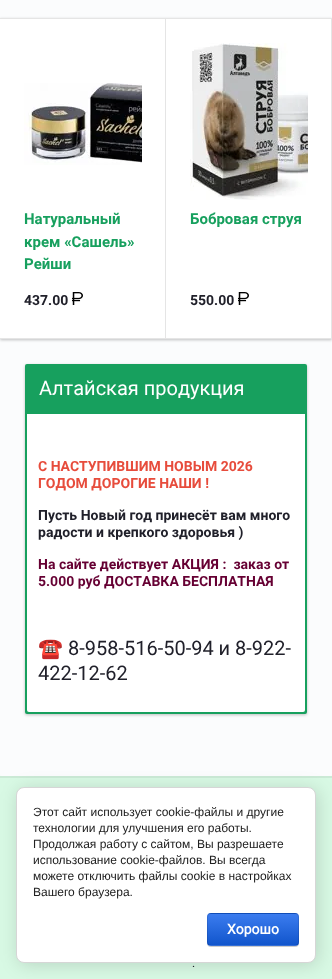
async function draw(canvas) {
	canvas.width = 332;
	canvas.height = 979;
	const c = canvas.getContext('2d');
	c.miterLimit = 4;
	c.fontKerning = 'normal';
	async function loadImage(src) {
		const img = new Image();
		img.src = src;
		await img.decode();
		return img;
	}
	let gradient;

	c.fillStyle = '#f4fef7';
	c.fillRect(0, 0, 332, 979);
	c.fillStyle = '#fbfcfd';
	c.beginPath();
	c.roundRect(0, -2, 332, 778, 2);
	c.fill();
	c.fillStyle = '#0000003d';
	c.filter = 'blur(1.5px)';
	c.beginPath();
	c.rect(0, 19, 332, 321);
	c.fill();
	c.filter = 'none';
	for (const [x, y, w, h, color] of [
		[0, 19, 331, 319, '#fff'],
		[0, 18, 332, 1, '#e5e5e5'],
		[0, 338, 332, 1, '#e5e5e5'],
		[165, 19, 1, 320, '#e5e5e5'],
	]) {
		c.fillStyle = color;
		c.fillRect(x, y, w, h);
	}
	c.drawImage(await loadImage('img1.png'), 24, 83, 118, 82);
	c.font = 'bold 15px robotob';
	c.fillStyle = '#17a05e';
	for (const [text, x, y] of [
		['Натуральный', 24, 224],
		['крем «Сашель»', 24, 247],
		['Рейши', 24, 269],
	]) {
		c.fillText(text, x, y);
	}
	c.font = 'bold 14px robotob';
	c.fillStyle = '#20202a';
	c.fillText('437.00', 24, 305);
	c.drawImage(await loadImage('img2.png'), 72, 292, 11, 13);
	c.fillStyle = '#e5e5e5';
	c.fillRect(331, 19, 1, 320);
	c.drawImage(await loadImage('img3.png'), 190, 43, 118, 157);
	c.font = 'bold 15px robotob';
	c.fillStyle = '#17a05e';
	c.fillText('Бобровая струя', 190, 224);
	c.font = 'bold 14px robotob';
	c.fillStyle = '#20202a';
	c.fillText('550.00', 190, 305);
	c.drawImage(await loadImage('img2.png'), 238, 292, 11, 13);
	c.fillStyle = '#0000003d';
	c.filter = 'blur(1.5px)';
	c.beginPath();
	c.roundRect(25, 365, 282, 350, 2);
	c.fill();
	c.filter = 'none';
	c.fillStyle = '#17a05e';
	c.beginPath();
	c.roundRect(25, 364, 282, 350, 2);
	c.fill();
	c.font = '20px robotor';
	c.fillStyle = '#fff';
	c.fillText('Алтайская продукция', 39, 395);
	c.beginPath();
	c.roundRect(27, 414, 278, 298, [0, 0, 2, 2]);
	c.fill();
	c.font = 'bold 14px robotob';
	c.fillStyle = '#e74c3c';
	c.fillText('С НАСТУПИВШИМ НОВЫМ 2026', 38, 471);
	c.fillText('ГОДОМ ДОРОГИЕ НАШИ !', 38, 488);
	c.fillStyle = '#20202a';
	c.fillText('Пусть Новый год принесёт вам много', 38, 520);
	c.fillText('радости и крепкого здоровья )', 38, 537);
	c.fillStyle = '#603';
	c.fillText('На сайте действует АКЦИЯ :  заказ от', 38, 569);
	c.fillText('5.000 руб ДОСТАВКА БЕСПЛАТНАЯ', 38, 586);
	c.font = '20px Noto Color Emoji';
	c.fillStyle = '#20202a';
	c.fillText('☎️', 38, 655);
	c.font = '20px robotor';
	c.fillText('8-958-516-50-94 и 8-922-', 68, 655);
	c.fillText('422-12-62', 38, 680);
	c.fillStyle = '#d8f9e4';
	c.fillRect(0, 778, 332, 201);
	c.fillStyle = '#cbead6';
	c.fillRect(0, 776, 332, 2);
	c.font = '12px robotor';
	c.fillStyle = '#20202a';
	c.fillText('.', 192, 967);
	c.fillStyle = '#00000024';
	c.filter = 'blur(9px)';
	c.beginPath();
	c.roundRect(18, 789, 300, 176, 8);
	c.fill();
	c.filter = 'none';
	c.fillStyle = '#fff';
	c.beginPath();
	c.roundRect(16.5, 787.5, 299, 175, 7.5);
	c.fill();
	c.strokeStyle = '#d6d6d6';
	c.stroke();
	c.font = '12px Liberation Sans';
	c.fillStyle = '#212121';
	for (const [text, x, y] of [
		['Этот сайт использует cookie-файлы и другие', 33, 816],
		['технологии для улучшения его работы.', 33, 832],
		['Продолжая работу с сайтом, Вы разрешаете', 33, 848],
		['использование cookie-файлов. Вы всегда', 33, 864],
		['можете отключить файлы cookie в настройках', 33, 880],
		['Вашего браузера.', 33, 896],
	]) {
		c.fillText(text, x, y);
	}
	c.fillStyle = '#00000033';
	c.filter = 'blur(0.5px)';
	c.beginPath();
	c.roundRect(207, 914, 92, 33, 4);
	c.fill();
	c.filter = 'none';
	c.save();
	c.beginPath();
	c.roundRect(207, 913, 92, 33, 4);
	c.clip();
	gradient = c.createLinearGradient(253, 883, 253, 914);
	gradient.addColorStop(0, '#3b7cef');
	gradient.addColorStop(1, '#15c');
	c.fillStyle = gradient;
	c.fillRect(207, 913, 92, 1);
	gradient = c.createLinearGradient(253, 914, 253, 945);
	gradient.addColorStop(0, '#3b7cef');
	gradient.addColorStop(1, '#15c');
	c.fillStyle = gradient;
	c.fillRect(207, 914, 92, 31);
	gradient = c.createLinearGradient(253, 945, 253, 976);
	gradient.addColorStop(0, '#3b7cef');
	gradient.addColorStop(1, '#15c');
	c.fillStyle = gradient;
	c.fillRect(207, 945, 92, 1);
	c.restore();
	c.beginPath();
	c.roundRect(207.5, 913.5, 91, 32, 3.5);
	c.strokeStyle = '#0000001a';
	c.stroke();
	c.font = 'bold 14px robotor';
	c.fillStyle = '#fff';
	c.fillText('Хорошо', 227, 934);
}

draw(document.querySelector('canvas'));
